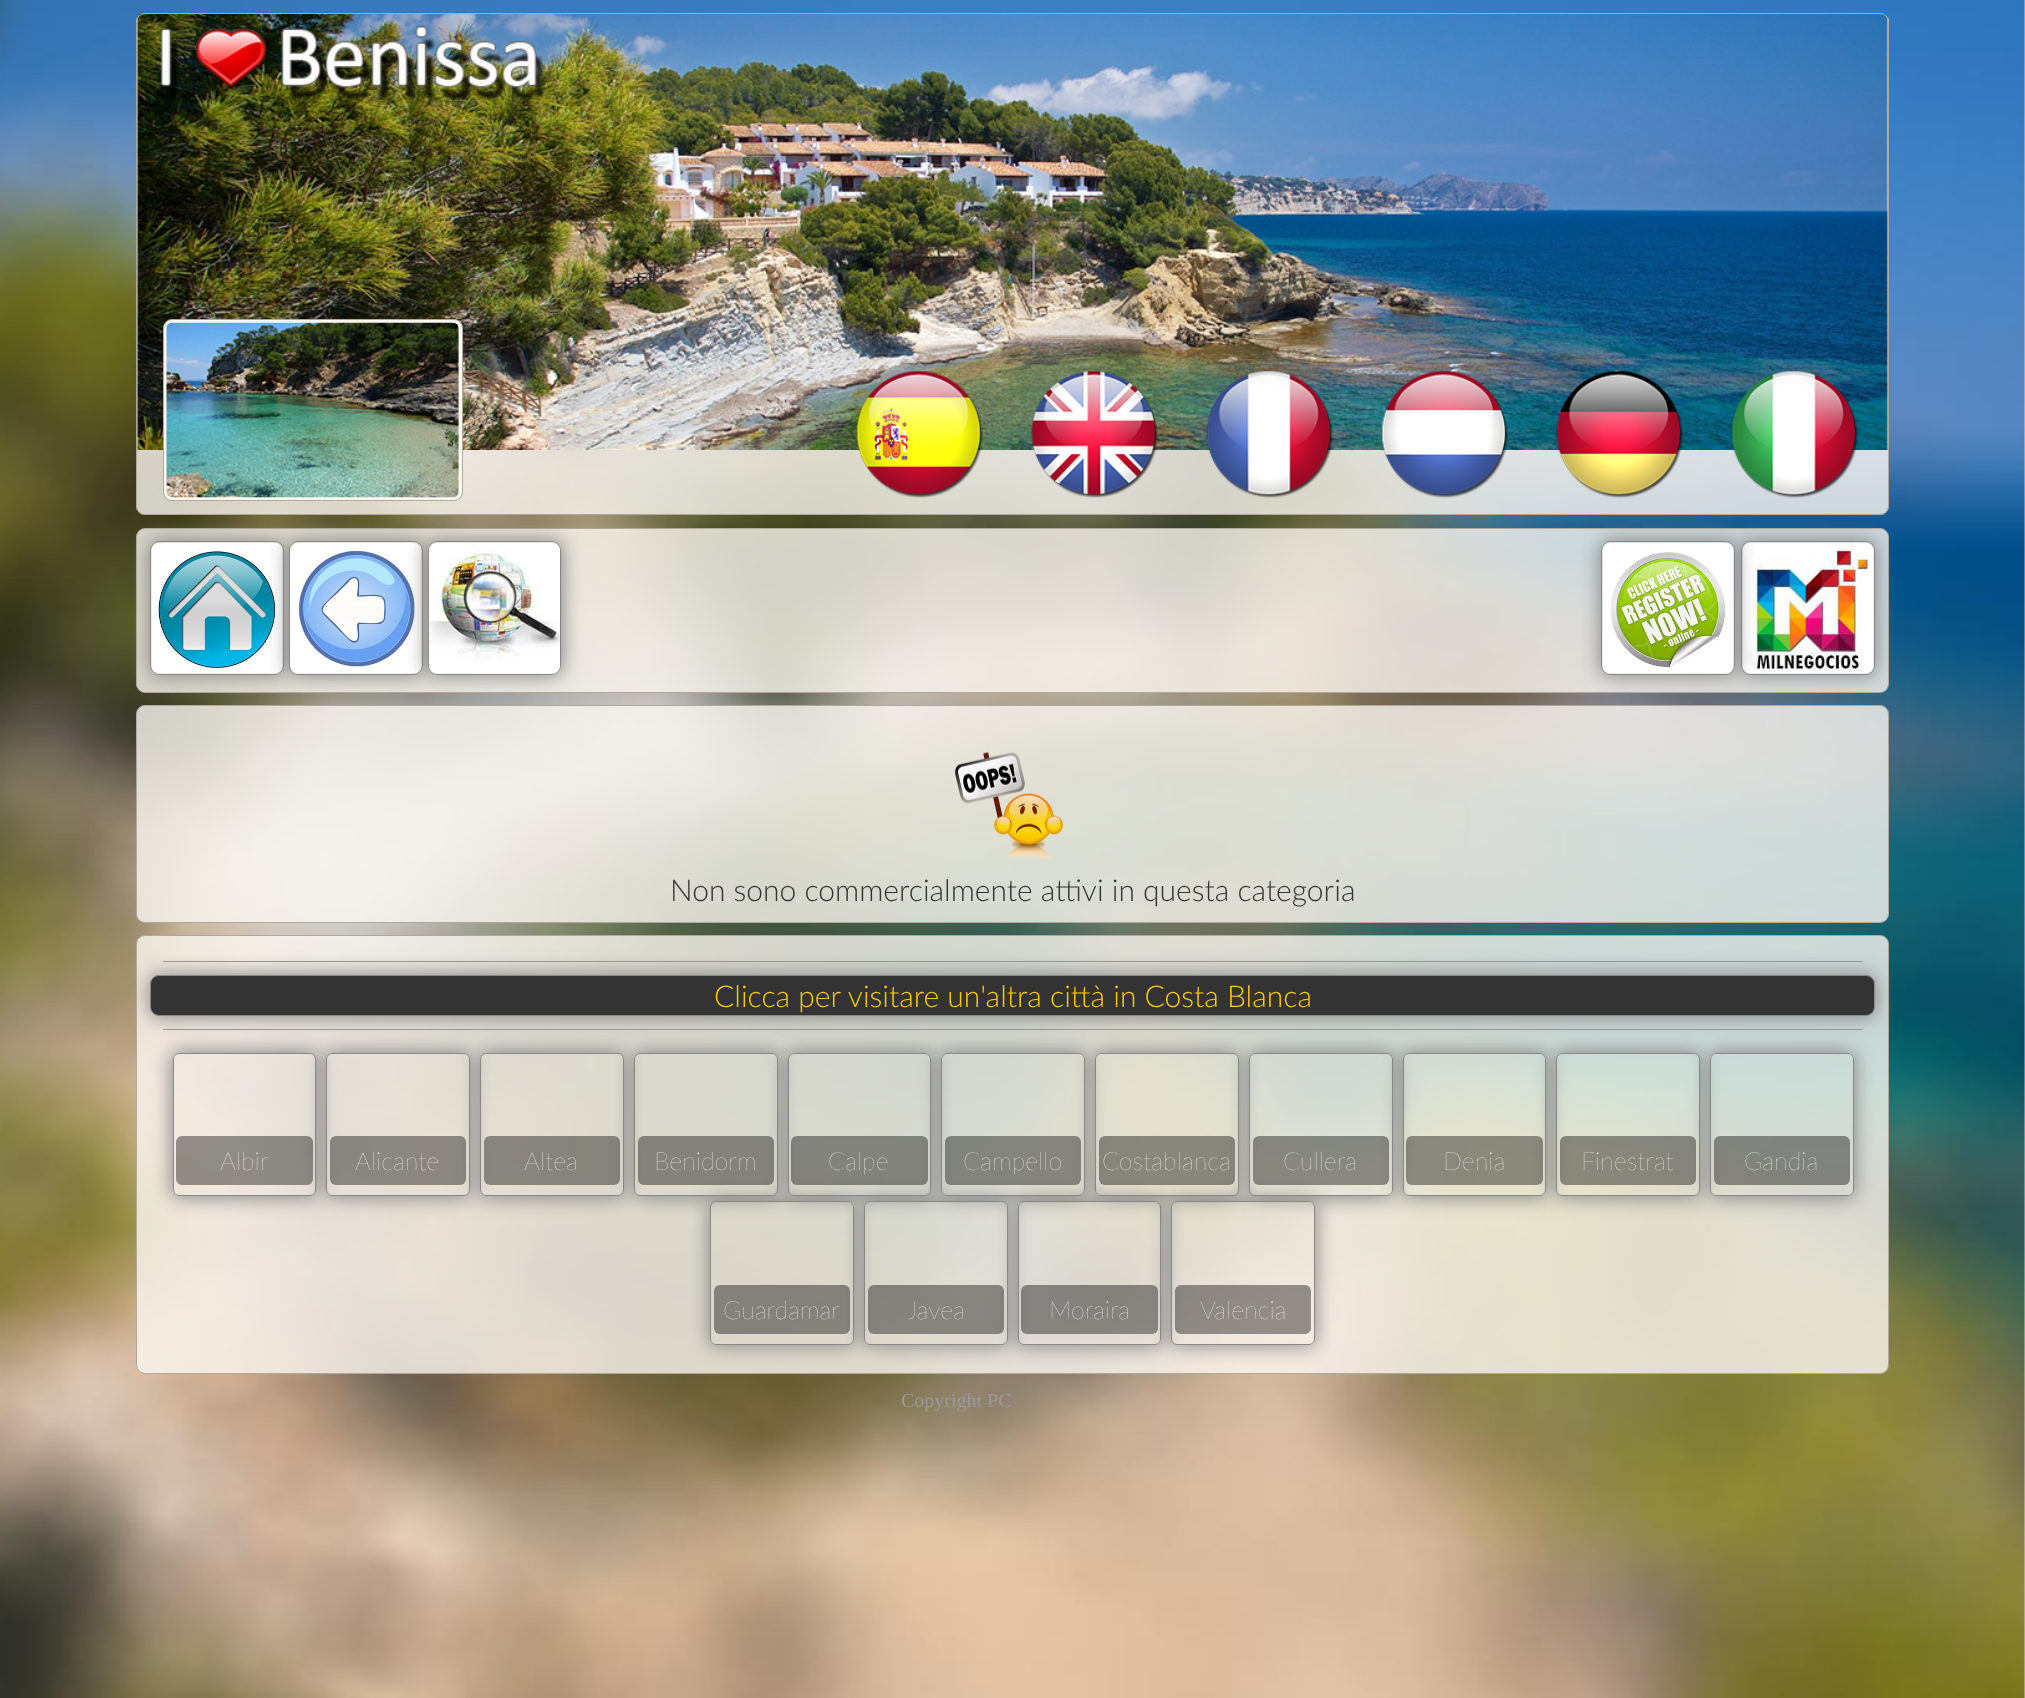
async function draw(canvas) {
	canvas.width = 2025;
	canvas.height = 1698;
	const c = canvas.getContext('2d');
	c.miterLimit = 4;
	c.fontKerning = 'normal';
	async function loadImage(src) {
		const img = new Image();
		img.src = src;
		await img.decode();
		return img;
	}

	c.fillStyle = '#fff';
	c.fillRect(0, 0, 2025, 1698);
	c.drawImage(await loadImage('img1.png'), 0, 0, 2025, 1698);
	c.fillStyle = '#fbf8f1cc';
	c.beginPath();
	c.roundRect(136, 13, 1753, 502, 9);
	c.fill();
	c.drawImage(await loadImage('img2.png'), 137, 13, 1751, 437);
	c.beginPath();
	c.roundRect(136.5, 13.5, 1752, 501, 8.5);
	c.strokeStyle = '#b0a89d';
	c.stroke();
	c.drawImage(await loadImage('img3.png'), 160, 26, 385, 75);
	c.fillStyle = '#fbf8f1';
	c.beginPath();
	c.roundRect(163.5, 319.5, 299, 181, 8.5);
	c.fill();
	c.stroke();
	c.drawImage(await loadImage('img4.png'), 166, 322, 293, 176);
	c.drawImage(await loadImage('img5.png'), 856, 371, 128, 127);
	c.drawImage(await loadImage('img6.png'), 1031, 371, 127, 127);
	c.drawImage(await loadImage('img7.png'), 1206, 371, 128, 127);
	c.drawImage(await loadImage('img8.png'), 1381, 371, 128, 127);
	c.drawImage(await loadImage('img9.png'), 1556, 371, 127, 127);
	c.drawImage(await loadImage('img10.png'), 1731, 371, 128, 127);
	c.fillStyle = '#fbf8f1cc';
	c.beginPath();
	c.roundRect(136.5, 528.5, 1752, 164, 8.5);
	c.fill();
	c.stroke();
	c.save();
	c.beginPath();
	c.moveTo(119, 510);
	c.lineTo(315, 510);
	c.lineTo(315, 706);
	c.lineTo(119, 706);
	c.closePath();
	c.moveTo(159, 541);
	c.lineTo(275, 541);
	c.bezierCurveTo(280, 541, 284, 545, 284, 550);
	c.lineTo(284, 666);
	c.bezierCurveTo(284, 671, 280, 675, 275, 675);
	c.lineTo(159, 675);
	c.bezierCurveTo(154, 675, 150, 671, 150, 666);
	c.lineTo(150, 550);
	c.bezierCurveTo(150, 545, 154, 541, 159, 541);
	c.closePath();
	c.clip('evenodd');
	c.fillStyle = '#888';
	c.filter = 'blur(9.5px)';
	c.beginPath();
	c.roundRect(149, 540, 136, 136, 10);
	c.fill();
	c.filter = 'none';
	c.restore();
	c.beginPath();
	c.roundRect(150.5, 541.5, 133, 133, 8.5);
	c.strokeStyle = '#888';
	c.stroke();
	c.drawImage(await loadImage('img11.png'), 151, 542, 132, 132);
	c.save();
	c.beginPath();
	c.moveTo(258, 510);
	c.lineTo(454, 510);
	c.lineTo(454, 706);
	c.lineTo(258, 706);
	c.closePath();
	c.moveTo(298, 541);
	c.lineTo(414, 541);
	c.bezierCurveTo(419, 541, 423, 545, 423, 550);
	c.lineTo(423, 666);
	c.bezierCurveTo(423, 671, 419, 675, 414, 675);
	c.lineTo(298, 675);
	c.bezierCurveTo(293, 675, 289, 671, 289, 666);
	c.lineTo(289, 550);
	c.bezierCurveTo(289, 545, 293, 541, 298, 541);
	c.closePath();
	c.clip('evenodd');
	c.fillStyle = '#888';
	c.filter = 'blur(9.5px)';
	c.beginPath();
	c.roundRect(288, 540, 136, 136, 10);
	c.fill();
	c.filter = 'none';
	c.restore();
	c.beginPath();
	c.roundRect(289.5, 541.5, 133, 133, 8.5);
	c.stroke();
	c.drawImage(await loadImage('img12.png'), 290, 542, 131, 132);
	c.save();
	c.beginPath();
	c.moveTo(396, 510);
	c.lineTo(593, 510);
	c.lineTo(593, 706);
	c.lineTo(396, 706);
	c.closePath();
	c.moveTo(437, 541);
	c.lineTo(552, 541);
	c.bezierCurveTo(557, 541, 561, 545, 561, 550);
	c.lineTo(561, 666);
	c.bezierCurveTo(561, 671, 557, 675, 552, 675);
	c.lineTo(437, 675);
	c.bezierCurveTo(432, 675, 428, 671, 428, 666);
	c.lineTo(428, 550);
	c.bezierCurveTo(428, 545, 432, 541, 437, 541);
	c.closePath();
	c.clip('evenodd');
	c.fillStyle = '#888';
	c.filter = 'blur(9.5px)';
	c.beginPath();
	c.roundRect(426, 540, 137, 136, 10);
	c.fill();
	c.filter = 'none';
	c.restore();
	c.beginPath();
	c.roundRect(428.5, 541.5, 132, 133, 8.5);
	c.stroke();
	c.drawImage(await loadImage('img13.png'), 428, 542, 132, 132);
	c.save();
	c.beginPath();
	c.moveTo(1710, 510);
	c.lineTo(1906, 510);
	c.lineTo(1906, 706);
	c.lineTo(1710, 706);
	c.closePath();
	c.moveTo(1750, 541);
	c.lineTo(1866, 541);
	c.bezierCurveTo(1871, 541, 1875, 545, 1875, 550);
	c.lineTo(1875, 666);
	c.bezierCurveTo(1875, 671, 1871, 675, 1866, 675);
	c.lineTo(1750, 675);
	c.bezierCurveTo(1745, 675, 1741, 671, 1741, 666);
	c.lineTo(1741, 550);
	c.bezierCurveTo(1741, 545, 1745, 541, 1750, 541);
	c.closePath();
	c.clip('evenodd');
	c.fillStyle = '#888';
	c.filter = 'blur(9.5px)';
	c.beginPath();
	c.roundRect(1740, 540, 136, 136, 10);
	c.fill();
	c.filter = 'none';
	c.restore();
	c.beginPath();
	c.roundRect(1741.5, 541.5, 133, 133, 8.5);
	c.stroke();
	c.drawImage(await loadImage('img15.png'), 1742, 542, 132, 132);
	c.save();
	c.beginPath();
	c.moveTo(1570, 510);
	c.lineTo(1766, 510);
	c.lineTo(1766, 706);
	c.lineTo(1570, 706);
	c.closePath();
	c.moveTo(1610, 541);
	c.lineTo(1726, 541);
	c.bezierCurveTo(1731, 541, 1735, 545, 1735, 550);
	c.lineTo(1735, 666);
	c.bezierCurveTo(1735, 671, 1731, 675, 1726, 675);
	c.lineTo(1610, 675);
	c.bezierCurveTo(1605, 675, 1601, 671, 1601, 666);
	c.lineTo(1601, 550);
	c.bezierCurveTo(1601, 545, 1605, 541, 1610, 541);
	c.closePath();
	c.clip('evenodd');
	c.fillStyle = '#888';
	c.filter = 'blur(9.5px)';
	c.beginPath();
	c.roundRect(1600, 540, 136, 136, 10);
	c.fill();
	c.filter = 'none';
	c.restore();
	c.beginPath();
	c.roundRect(1601.5, 541.5, 133, 133, 8.5);
	c.stroke();
	c.drawImage(await loadImage('img14.png'), 1602, 542, 132, 132);
	c.beginPath();
	c.roundRect(136.5, 705.5, 1752, 217, 8.5);
	c.fill();
	c.strokeStyle = '#b0a89d';
	c.stroke();
	c.drawImage(await loadImage('img16.png'), 955, 751, 108, 107);
	c.font = '300 30px Lato';
	c.fillStyle = '#333';
	c.fillText('Non sono commercialmente attivi in questa categoria', 670, 901);
	c.fillStyle = '#fbf8f1cc';
	c.beginPath();
	c.roundRect(136.5, 935.5, 1752, 438, 8.5);
	c.fill();
	c.stroke();
	c.fillStyle = '#999';
	c.fillRect(163, 961, 1700, 1);
	c.fillStyle = '#888';
	c.filter = 'blur(9.5px)';
	c.beginPath();
	c.roundRect(149, 974, 1727, 44, 10);
	c.fill();
	c.filter = 'none';
	c.fillStyle = '#333';
	c.beginPath();
	c.roundRect(150.5, 975.5, 1724, 40, 8.5);
	c.fill();
	c.strokeStyle = '#888';
	c.stroke();
	c.fillStyle = '#fc0';
	c.fillText('Clicca per visitare un\'altra città in Costa Blanca', 714, 1007);
	c.fillStyle = '#999';
	c.fillRect(163, 1029, 1700, 1);
	c.save();
	c.beginPath();
	c.moveTo(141, 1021);
	c.lineTo(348, 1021);
	c.lineTo(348, 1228);
	c.lineTo(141, 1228);
	c.closePath();
	c.moveTo(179, 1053);
	c.lineTo(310, 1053);
	c.bezierCurveTo(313.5, 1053, 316, 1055.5, 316, 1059);
	c.lineTo(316, 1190);
	c.bezierCurveTo(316, 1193.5, 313.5, 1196, 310, 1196);
	c.lineTo(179, 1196);
	c.bezierCurveTo(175.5, 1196, 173, 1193.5, 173, 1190);
	c.lineTo(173, 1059);
	c.bezierCurveTo(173, 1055.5, 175.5, 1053, 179, 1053);
	c.closePath();
	c.clip('evenodd');
	c.fillStyle = '#888';
	c.filter = 'blur(9.5px)';
	c.beginPath();
	c.roundRect(171, 1051, 147, 147, 8);
	c.fill();
	c.filter = 'none';
	c.restore();
	c.beginPath();
	c.roundRect(173.5, 1053.5, 142, 142, 5.5);
	c.stroke();
	c.save();
	c.beginPath();
	c.moveTo(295, 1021);
	c.lineTo(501, 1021);
	c.lineTo(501, 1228);
	c.lineTo(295, 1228);
	c.closePath();
	c.moveTo(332, 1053);
	c.lineTo(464, 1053);
	c.bezierCurveTo(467.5, 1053, 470, 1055.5, 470, 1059);
	c.lineTo(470, 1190);
	c.bezierCurveTo(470, 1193.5, 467.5, 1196, 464, 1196);
	c.lineTo(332, 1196);
	c.bezierCurveTo(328.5, 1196, 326, 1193.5, 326, 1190);
	c.lineTo(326, 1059);
	c.bezierCurveTo(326, 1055.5, 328.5, 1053, 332, 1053);
	c.closePath();
	c.clip('evenodd');
	c.fillStyle = '#888';
	c.filter = 'blur(9.5px)';
	c.beginPath();
	c.roundRect(325, 1051, 146, 147, 8);
	c.fill();
	c.filter = 'none';
	c.restore();
	c.fillStyle = '#00000066';
	c.beginPath();
	c.roundRect(176, 1136, 137, 49, 6);
	c.fill();
	c.font = '200 25px Lato';
	c.fillStyle = '#fff';
	c.fillText('Albir', 220, 1170);
	c.beginPath();
	c.roundRect(326.5, 1053.5, 143, 142, 5.5);
	c.stroke();
	c.save();
	c.beginPath();
	c.moveTo(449, 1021);
	c.lineTo(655, 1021);
	c.lineTo(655, 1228);
	c.lineTo(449, 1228);
	c.closePath();
	c.moveTo(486, 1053);
	c.lineTo(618, 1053);
	c.bezierCurveTo(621.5, 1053, 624, 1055.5, 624, 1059);
	c.lineTo(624, 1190);
	c.bezierCurveTo(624, 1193.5, 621.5, 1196, 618, 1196);
	c.lineTo(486, 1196);
	c.bezierCurveTo(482.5, 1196, 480, 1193.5, 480, 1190);
	c.lineTo(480, 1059);
	c.bezierCurveTo(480, 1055.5, 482.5, 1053, 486, 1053);
	c.closePath();
	c.clip('evenodd');
	c.fillStyle = '#888';
	c.filter = 'blur(9.5px)';
	c.beginPath();
	c.roundRect(479, 1051, 146, 147, 8);
	c.fill();
	c.filter = 'none';
	c.restore();
	c.fillStyle = '#00000066';
	c.beginPath();
	c.roundRect(330, 1136, 136, 49, 6);
	c.fill();
	c.fillStyle = '#fff';
	c.fillText('Alicante', 355, 1170);
	c.beginPath();
	c.roundRect(480.5, 1053.5, 143, 142, 5.5);
	c.stroke();
	c.save();
	c.beginPath();
	c.moveTo(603, 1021);
	c.lineTo(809, 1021);
	c.lineTo(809, 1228);
	c.lineTo(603, 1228);
	c.closePath();
	c.moveTo(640, 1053);
	c.lineTo(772, 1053);
	c.bezierCurveTo(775.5, 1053, 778, 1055.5, 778, 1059);
	c.lineTo(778, 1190);
	c.bezierCurveTo(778, 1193.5, 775.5, 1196, 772, 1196);
	c.lineTo(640, 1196);
	c.bezierCurveTo(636.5, 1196, 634, 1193.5, 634, 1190);
	c.lineTo(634, 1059);
	c.bezierCurveTo(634, 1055.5, 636.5, 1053, 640, 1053);
	c.closePath();
	c.clip('evenodd');
	c.fillStyle = '#888';
	c.filter = 'blur(9.5px)';
	c.beginPath();
	c.roundRect(633, 1051, 146, 147, 8);
	c.fill();
	c.filter = 'none';
	c.restore();
	c.fillStyle = '#00000066';
	c.beginPath();
	c.roundRect(484, 1136, 136, 49, 6);
	c.fill();
	c.fillStyle = '#fff';
	c.fillText('Altea', 524, 1170);
	c.beginPath();
	c.roundRect(634.5, 1053.5, 143, 142, 5.5);
	c.stroke();
	c.save();
	c.beginPath();
	c.moveTo(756, 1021);
	c.lineTo(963, 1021);
	c.lineTo(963, 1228);
	c.lineTo(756, 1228);
	c.closePath();
	c.moveTo(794, 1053);
	c.lineTo(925, 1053);
	c.bezierCurveTo(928.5, 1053, 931, 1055.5, 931, 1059);
	c.lineTo(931, 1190);
	c.bezierCurveTo(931, 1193.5, 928.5, 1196, 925, 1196);
	c.lineTo(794, 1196);
	c.bezierCurveTo(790.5, 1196, 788, 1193.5, 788, 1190);
	c.lineTo(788, 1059);
	c.bezierCurveTo(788, 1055.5, 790.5, 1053, 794, 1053);
	c.closePath();
	c.clip('evenodd');
	c.fillStyle = '#888';
	c.filter = 'blur(9.5px)';
	c.beginPath();
	c.roundRect(786, 1051, 147, 147, 8);
	c.fill();
	c.filter = 'none';
	c.restore();
	c.beginPath();
	c.roundRect(788.5, 1053.5, 142, 142, 5.5);
	c.stroke();
	c.save();
	c.beginPath();
	c.moveTo(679, 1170);
	c.lineTo(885, 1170);
	c.lineTo(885, 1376);
	c.lineTo(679, 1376);
	c.closePath();
	c.moveTo(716, 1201);
	c.lineTo(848, 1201);
	c.bezierCurveTo(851.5, 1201, 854, 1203.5, 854, 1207);
	c.lineTo(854, 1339);
	c.bezierCurveTo(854, 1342.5, 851.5, 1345, 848, 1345);
	c.lineTo(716, 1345);
	c.bezierCurveTo(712.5, 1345, 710, 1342.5, 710, 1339);
	c.lineTo(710, 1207);
	c.bezierCurveTo(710, 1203.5, 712.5, 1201, 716, 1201);
	c.closePath();
	c.clip('evenodd');
	c.fillStyle = '#888';
	c.filter = 'blur(9.5px)';
	c.beginPath();
	c.roundRect(709, 1200, 146, 146, 8);
	c.fill();
	c.filter = 'none';
	c.restore();
	c.fillStyle = '#00000066';
	c.beginPath();
	c.roundRect(638, 1136, 136, 49, 6);
	c.fill();
	c.fillStyle = '#fff';
	c.fillText('Benidorm', 654, 1170);
	c.save();
	c.beginPath();
	c.moveTo(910, 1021);
	c.lineTo(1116, 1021);
	c.lineTo(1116, 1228);
	c.lineTo(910, 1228);
	c.closePath();
	c.moveTo(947, 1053);
	c.lineTo(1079, 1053);
	c.bezierCurveTo(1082.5, 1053, 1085, 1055.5, 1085, 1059);
	c.lineTo(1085, 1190);
	c.bezierCurveTo(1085, 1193.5, 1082.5, 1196, 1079, 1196);
	c.lineTo(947, 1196);
	c.bezierCurveTo(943.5, 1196, 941, 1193.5, 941, 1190);
	c.lineTo(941, 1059);
	c.bezierCurveTo(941, 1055.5, 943.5, 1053, 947, 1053);
	c.closePath();
	c.clip('evenodd');
	c.fillStyle = '#888';
	c.filter = 'blur(9.5px)';
	c.beginPath();
	c.roundRect(940, 1051, 146, 147, 8);
	c.fill();
	c.filter = 'none';
	c.restore();
	c.beginPath();
	c.roundRect(941.5, 1053.5, 143, 142, 5.5);
	c.stroke();
	c.beginPath();
	c.roundRect(710.5, 1201.5, 143, 143, 5.5);
	c.stroke();
	c.save();
	c.beginPath();
	c.moveTo(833, 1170);
	c.lineTo(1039, 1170);
	c.lineTo(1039, 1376);
	c.lineTo(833, 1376);
	c.closePath();
	c.moveTo(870, 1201);
	c.lineTo(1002, 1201);
	c.bezierCurveTo(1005.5, 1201, 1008, 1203.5, 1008, 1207);
	c.lineTo(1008, 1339);
	c.bezierCurveTo(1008, 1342.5, 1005.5, 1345, 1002, 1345);
	c.lineTo(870, 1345);
	c.bezierCurveTo(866.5, 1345, 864, 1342.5, 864, 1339);
	c.lineTo(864, 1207);
	c.bezierCurveTo(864, 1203.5, 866.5, 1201, 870, 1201);
	c.closePath();
	c.clip('evenodd');
	c.fillStyle = '#888';
	c.filter = 'blur(9.5px)';
	c.beginPath();
	c.roundRect(863, 1200, 146, 146, 8);
	c.fill();
	c.filter = 'none';
	c.restore();
	c.fillStyle = '#00000066';
	c.beginPath();
	c.roundRect(791, 1136, 137, 49, 6);
	c.fill();
	c.fillStyle = '#fff';
	c.fillText('Calpe', 828, 1170);
	c.save();
	c.beginPath();
	c.moveTo(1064, 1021);
	c.lineTo(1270, 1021);
	c.lineTo(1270, 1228);
	c.lineTo(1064, 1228);
	c.closePath();
	c.moveTo(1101, 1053);
	c.lineTo(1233, 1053);
	c.bezierCurveTo(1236.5, 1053, 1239, 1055.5, 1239, 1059);
	c.lineTo(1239, 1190);
	c.bezierCurveTo(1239, 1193.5, 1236.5, 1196, 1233, 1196);
	c.lineTo(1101, 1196);
	c.bezierCurveTo(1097.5, 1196, 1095, 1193.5, 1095, 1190);
	c.lineTo(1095, 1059);
	c.bezierCurveTo(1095, 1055.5, 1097.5, 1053, 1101, 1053);
	c.closePath();
	c.clip('evenodd');
	c.fillStyle = '#888';
	c.filter = 'blur(9.5px)';
	c.beginPath();
	c.roundRect(1094, 1051, 146, 147, 8);
	c.fill();
	c.filter = 'none';
	c.restore();
	c.beginPath();
	c.roundRect(1095.5, 1053.5, 143, 142, 5.5);
	c.stroke();
	c.beginPath();
	c.roundRect(864.5, 1201.5, 143, 143, 5.5);
	c.stroke();
	c.save();
	c.beginPath();
	c.moveTo(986, 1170);
	c.lineTo(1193, 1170);
	c.lineTo(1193, 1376);
	c.lineTo(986, 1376);
	c.closePath();
	c.moveTo(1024, 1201);
	c.lineTo(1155, 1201);
	c.bezierCurveTo(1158.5, 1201, 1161, 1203.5, 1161, 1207);
	c.lineTo(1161, 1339);
	c.bezierCurveTo(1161, 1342.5, 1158.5, 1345, 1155, 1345);
	c.lineTo(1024, 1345);
	c.bezierCurveTo(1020.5, 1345, 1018, 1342.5, 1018, 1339);
	c.lineTo(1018, 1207);
	c.bezierCurveTo(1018, 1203.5, 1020.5, 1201, 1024, 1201);
	c.closePath();
	c.clip('evenodd');
	c.fillStyle = '#888';
	c.filter = 'blur(9.5px)';
	c.beginPath();
	c.roundRect(1016, 1200, 147, 146, 8);
	c.fill();
	c.filter = 'none';
	c.restore();
	c.fillStyle = '#00000066';
	c.beginPath();
	c.roundRect(945, 1136, 136, 49, 6);
	c.fill();
	c.fillStyle = '#fff';
	c.fillText('Campello', 963, 1170);
	c.save();
	c.beginPath();
	c.moveTo(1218, 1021);
	c.lineTo(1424, 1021);
	c.lineTo(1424, 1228);
	c.lineTo(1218, 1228);
	c.closePath();
	c.moveTo(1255, 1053);
	c.lineTo(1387, 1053);
	c.bezierCurveTo(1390.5, 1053, 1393, 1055.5, 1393, 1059);
	c.lineTo(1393, 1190);
	c.bezierCurveTo(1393, 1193.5, 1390.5, 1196, 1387, 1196);
	c.lineTo(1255, 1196);
	c.bezierCurveTo(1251.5, 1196, 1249, 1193.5, 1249, 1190);
	c.lineTo(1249, 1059);
	c.bezierCurveTo(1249, 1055.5, 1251.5, 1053, 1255, 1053);
	c.closePath();
	c.clip('evenodd');
	c.fillStyle = '#888';
	c.filter = 'blur(9.5px)';
	c.beginPath();
	c.roundRect(1248, 1051, 146, 147, 8);
	c.fill();
	c.filter = 'none';
	c.restore();
	c.beginPath();
	c.roundRect(1249.5, 1053.5, 143, 142, 5.5);
	c.stroke();
	c.beginPath();
	c.roundRect(1018.5, 1201.5, 142, 143, 5.5);
	c.stroke();
	c.save();
	c.beginPath();
	c.moveTo(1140, 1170);
	c.lineTo(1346, 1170);
	c.lineTo(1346, 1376);
	c.lineTo(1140, 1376);
	c.closePath();
	c.moveTo(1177, 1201);
	c.lineTo(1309, 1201);
	c.bezierCurveTo(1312.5, 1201, 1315, 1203.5, 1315, 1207);
	c.lineTo(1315, 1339);
	c.bezierCurveTo(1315, 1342.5, 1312.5, 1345, 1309, 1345);
	c.lineTo(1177, 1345);
	c.bezierCurveTo(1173.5, 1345, 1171, 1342.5, 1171, 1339);
	c.lineTo(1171, 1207);
	c.bezierCurveTo(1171, 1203.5, 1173.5, 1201, 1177, 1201);
	c.closePath();
	c.clip('evenodd');
	c.fillStyle = '#888';
	c.filter = 'blur(9.5px)';
	c.beginPath();
	c.roundRect(1170, 1200, 146, 146, 8);
	c.fill();
	c.filter = 'none';
	c.restore();
	c.fillStyle = '#00000066';
	c.beginPath();
	c.roundRect(1099, 1136, 136, 49, 6);
	c.fill();
	c.fillStyle = '#fff';
	c.fillText('Costablanca', 1102, 1170);
	c.save();
	c.beginPath();
	c.moveTo(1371, 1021);
	c.lineTo(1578, 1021);
	c.lineTo(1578, 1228);
	c.lineTo(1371, 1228);
	c.closePath();
	c.moveTo(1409, 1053);
	c.lineTo(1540, 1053);
	c.bezierCurveTo(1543.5, 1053, 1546, 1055.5, 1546, 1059);
	c.lineTo(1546, 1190);
	c.bezierCurveTo(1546, 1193.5, 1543.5, 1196, 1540, 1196);
	c.lineTo(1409, 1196);
	c.bezierCurveTo(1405.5, 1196, 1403, 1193.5, 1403, 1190);
	c.lineTo(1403, 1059);
	c.bezierCurveTo(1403, 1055.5, 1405.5, 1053, 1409, 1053);
	c.closePath();
	c.clip('evenodd');
	c.fillStyle = '#888';
	c.filter = 'blur(9.5px)';
	c.beginPath();
	c.roundRect(1401, 1051, 147, 147, 8);
	c.fill();
	c.filter = 'none';
	c.restore();
	c.fillStyle = '#00000066';
	c.beginPath();
	c.roundRect(1253, 1136, 136, 49, 6);
	c.fill();
	c.fillStyle = '#fff';
	c.fillText('Cullera', 1283, 1170);
	c.beginPath();
	c.roundRect(1403.5, 1053.5, 142, 142, 5.5);
	c.stroke();
	c.save();
	c.beginPath();
	c.moveTo(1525, 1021);
	c.lineTo(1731, 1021);
	c.lineTo(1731, 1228);
	c.lineTo(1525, 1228);
	c.closePath();
	c.moveTo(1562, 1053);
	c.lineTo(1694, 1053);
	c.bezierCurveTo(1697.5, 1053, 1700, 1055.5, 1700, 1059);
	c.lineTo(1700, 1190);
	c.bezierCurveTo(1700, 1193.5, 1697.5, 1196, 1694, 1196);
	c.lineTo(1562, 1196);
	c.bezierCurveTo(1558.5, 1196, 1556, 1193.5, 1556, 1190);
	c.lineTo(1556, 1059);
	c.bezierCurveTo(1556, 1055.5, 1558.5, 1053, 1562, 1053);
	c.closePath();
	c.clip('evenodd');
	c.fillStyle = '#888';
	c.filter = 'blur(9.5px)';
	c.beginPath();
	c.roundRect(1555, 1051, 146, 147, 8);
	c.fill();
	c.filter = 'none';
	c.restore();
	c.fillStyle = '#00000066';
	c.beginPath();
	c.roundRect(1406, 1136, 137, 49, 6);
	c.fill();
	c.fillStyle = '#fff';
	c.fillText('Denia', 1443, 1170);
	c.beginPath();
	c.roundRect(1556.5, 1053.5, 143, 142, 5.5);
	c.stroke();
	c.save();
	c.beginPath();
	c.moveTo(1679, 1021);
	c.lineTo(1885, 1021);
	c.lineTo(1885, 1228);
	c.lineTo(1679, 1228);
	c.closePath();
	c.moveTo(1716, 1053);
	c.lineTo(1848, 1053);
	c.bezierCurveTo(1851.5, 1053, 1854, 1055.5, 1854, 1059);
	c.lineTo(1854, 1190);
	c.bezierCurveTo(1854, 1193.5, 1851.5, 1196, 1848, 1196);
	c.lineTo(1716, 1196);
	c.bezierCurveTo(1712.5, 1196, 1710, 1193.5, 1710, 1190);
	c.lineTo(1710, 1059);
	c.bezierCurveTo(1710, 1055.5, 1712.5, 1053, 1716, 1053);
	c.closePath();
	c.clip('evenodd');
	c.fillStyle = '#888';
	c.filter = 'blur(9.5px)';
	c.beginPath();
	c.roundRect(1709, 1051, 146, 147, 8);
	c.fill();
	c.filter = 'none';
	c.restore();
	c.fillStyle = '#00000066';
	c.beginPath();
	c.roundRect(1560, 1136, 136, 49, 6);
	c.fill();
	c.fillStyle = '#fff';
	c.fillText('Finestrat', 1581, 1170);
	c.beginPath();
	c.roundRect(1710.5, 1053.5, 143, 142, 5.5);
	c.stroke();
	c.fillStyle = '#00000066';
	c.beginPath();
	c.roundRect(1714, 1136, 136, 49, 6);
	c.fill();
	c.fillStyle = '#fff';
	c.fillText('Gandia', 1744, 1170);
	c.fillStyle = '#00000066';
	c.beginPath();
	c.roundRect(714, 1285, 136, 49, 6);
	c.fill();
	c.fillStyle = '#fff';
	c.fillText('Guardamar', 723, 1319);
	c.fillStyle = '#00000066';
	c.beginPath();
	c.roundRect(868, 1285, 136, 49, 6);
	c.fill();
	c.fillStyle = '#fff';
	c.fillText('Javea', 907, 1319);
	c.fillStyle = '#00000066';
	c.beginPath();
	c.roundRect(1021, 1285, 137, 49, 6);
	c.fill();
	c.fillStyle = '#fff';
	c.fillText('Moraira', 1049, 1319);
	c.beginPath();
	c.roundRect(1171.5, 1201.5, 143, 143, 5.5);
	c.stroke();
	c.fillStyle = '#00000066';
	c.beginPath();
	c.roundRect(1175, 1285, 136, 49, 6);
	c.fill();
	c.fillStyle = '#fff';
	c.fillText('Valencia', 1200, 1319);
	c.font = '20px Liberation Serif';
	c.fillStyle = '#999';
	c.fillText('Copyright PC', 901, 1407);
}

draw(document.querySelector('canvas'));
